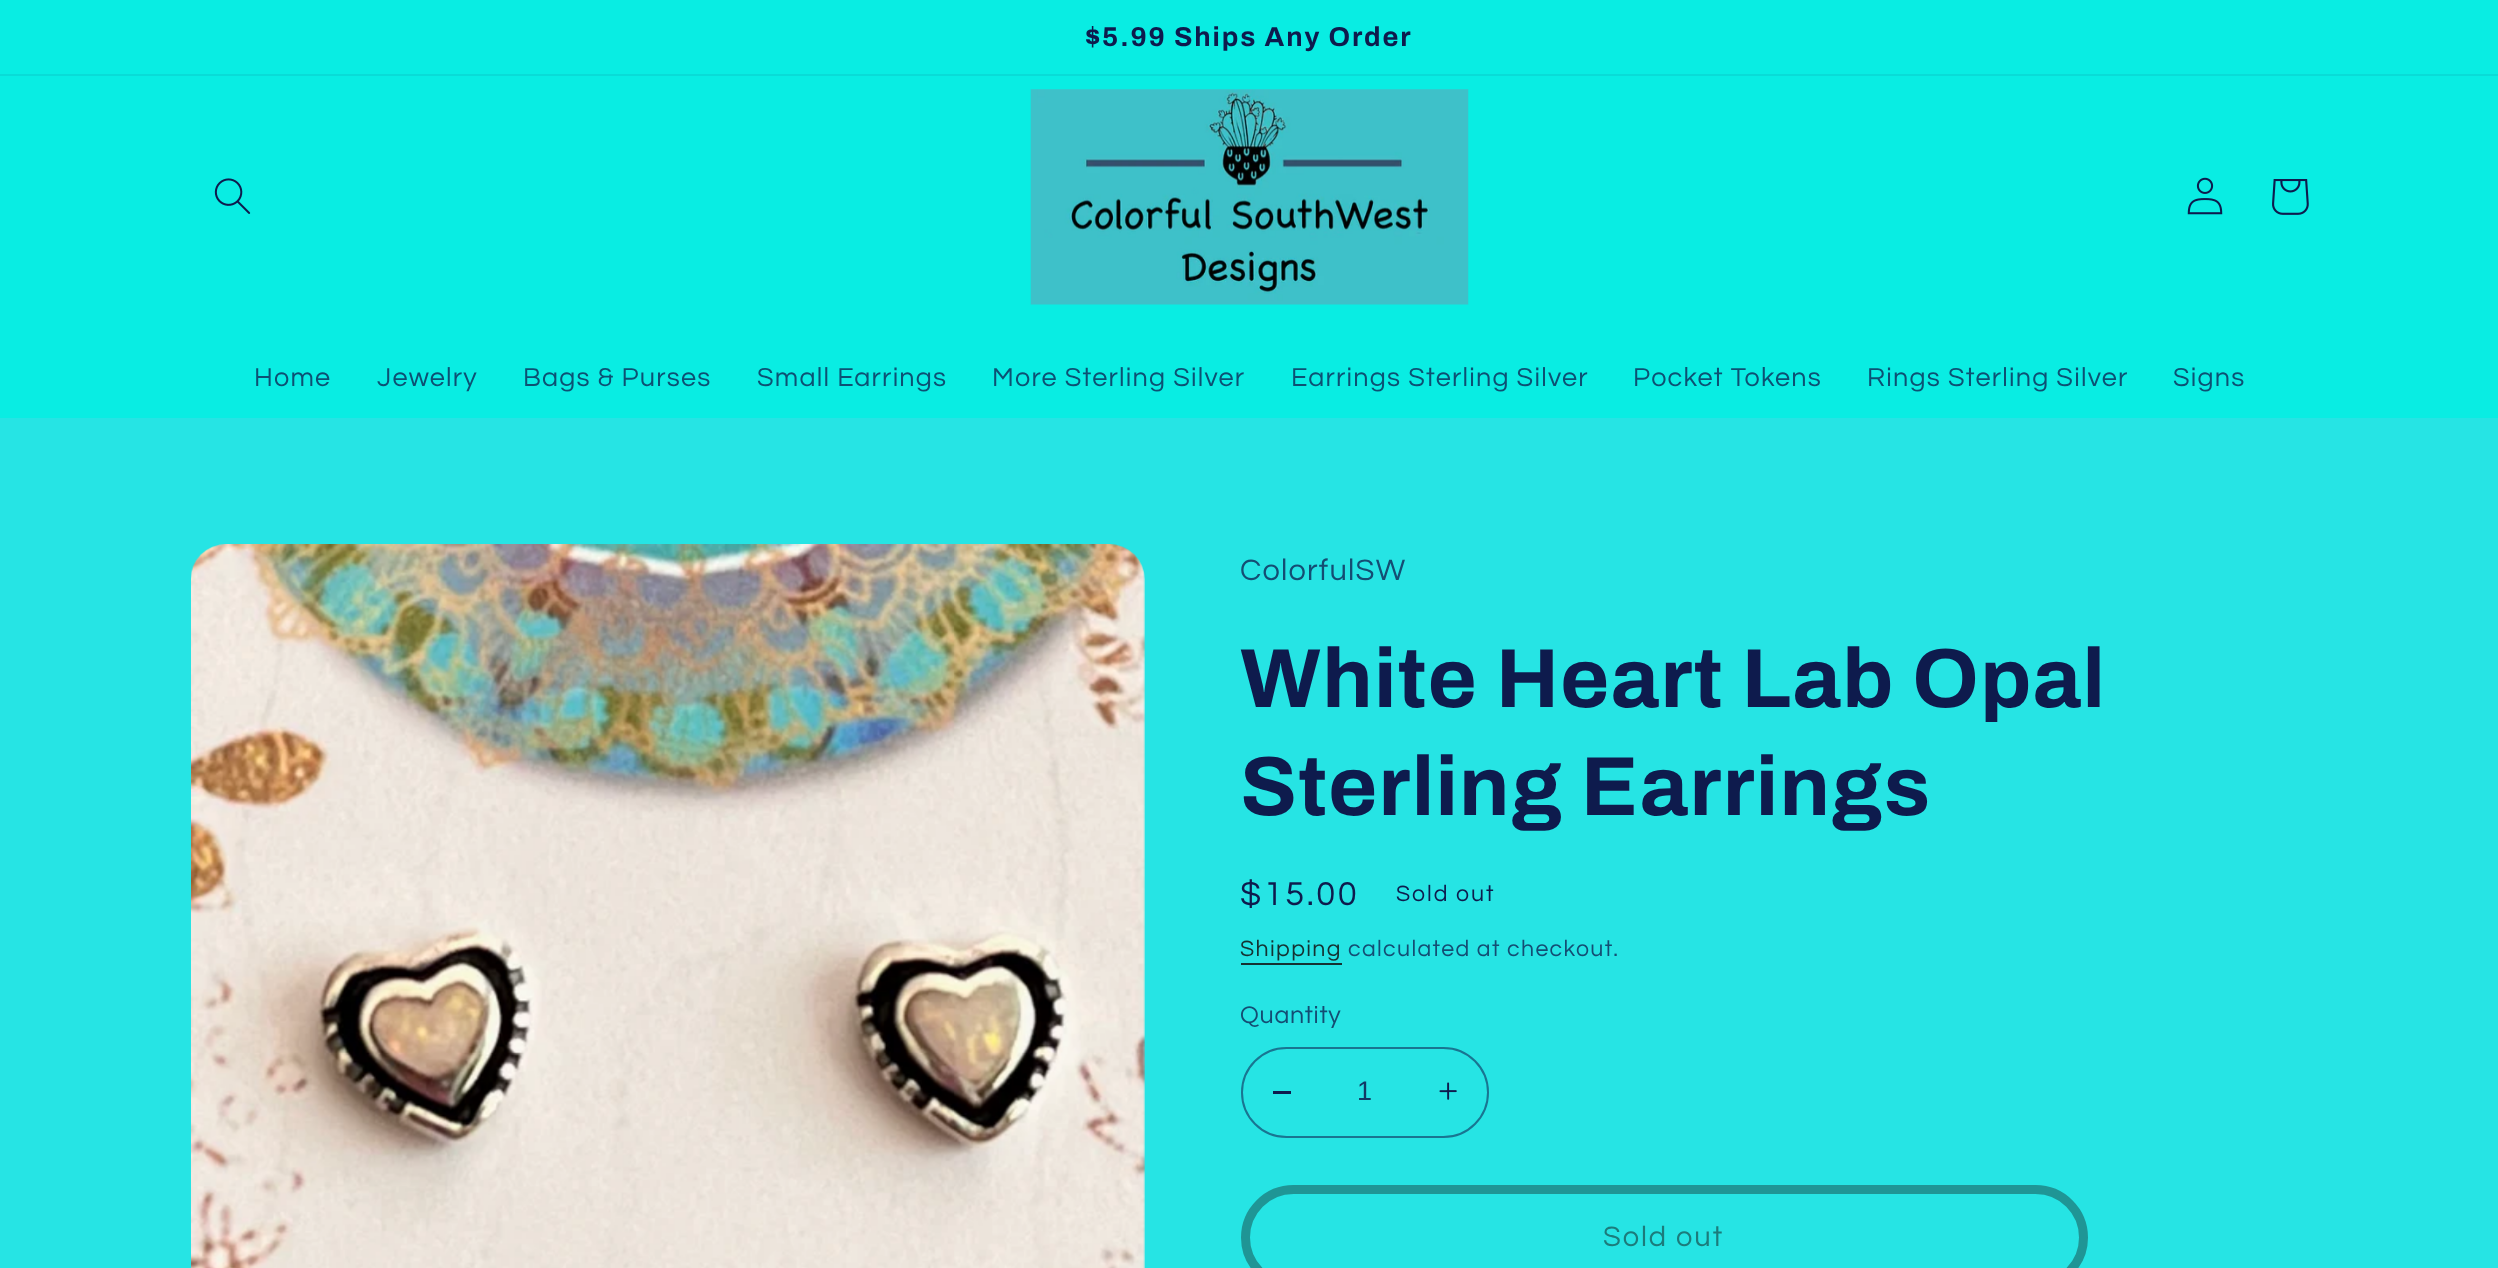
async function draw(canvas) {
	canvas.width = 2498;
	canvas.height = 1268;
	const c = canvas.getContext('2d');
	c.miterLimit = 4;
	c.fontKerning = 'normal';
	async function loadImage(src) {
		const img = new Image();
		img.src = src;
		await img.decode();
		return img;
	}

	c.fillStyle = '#26e4e4';
	c.fillRect(0, 0, 2498, 1268);
	c.fillStyle = '#09ede3';
	c.fillRect(0, 0, 2498, 74);
	c.fillStyle = '#09dcd7';
	c.fillRect(0, 74, 2498, 2);
	c.letterSpacing = '1.9px';
	c.font = 'bold 27.25px Archivo';
	c.fillStyle = '#0e1b4d';
	c.fillText('$5.99 Ships Any Order', 1085, 46);
	c.fillStyle = '#09ede3';
	c.fillRect(0, 76, 2498, 342);
	c.drawImage(await loadImage('img1.png'), 214, 178, 37, 36);
	c.drawImage(await loadImage('img2.png'), 1030, 89, 439, 216);
	c.drawImage(await loadImage('img3.png'), 2187, 177, 36, 38);
	c.drawImage(await loadImage('img4.png'), 2272, 179, 37, 36);
	c.letterSpacing = '1.2px';
	c.font = '27px Questrial';
	c.fillStyle = '#0d5073';
	for (const [text, x, y] of [
		['Home', 254, 386],
		['Jewelry', 377, 386],
		['Bags & Purses', 523, 386],
		['Small Earrings', 757, 386],
		['More Sterling Silver', 992, 386],
		['Earrings Sterling Silver', 1291, 386],
		['Pocket Tokens', 1633, 386],
		['Rings Sterling Silver', 1867, 386],
		['Signs', 2173, 386],
	]) {
		c.fillText(text, x, y);
	}
	c.drawImage(await loadImage('img5.png'), 191, 544, 954, 724);
	c.font = '30.75px Questrial';
	c.fillStyle = '#144d73';
	c.fillText('ColorfulSW', 1240, 580);
	c.letterSpacing = '1.25px';
	c.font = 'bold 84px Archivo';
	c.fillStyle = '#0e1b4d';
	c.fillText('White Heart Lab Opal', 1240, 707);
	c.fillText('Sterling Earrings', 1240, 815);
	c.letterSpacing = '2.5px';
	c.font = '34.5px Questrial';
	c.fillText('$15.00', 1240, 905);
	c.letterSpacing = '1.9px';
	c.font = '23.1px Questrial';
	c.fillText('Sold out', 1396, 901);
	c.letterSpacing = '1.35px';
	c.fillStyle = '#153232';
	c.fillText('Shipping', 1240, 956);
	c.fillRect(1241, 963, 101, 2);
	c.fillStyle = '#144d73';
	c.fillText('calculated at checkout.', 1348, 956);
	c.letterSpacing = '0.75px';
	c.font = '25px Questrial';
	c.fillText('Quantity', 1240, 1023);
	c.fillStyle = '#0e1b4d';
	c.fillRect(1273, 1091, 18, 3);
	c.drawImage(await loadImage('img6.png'), 1439, 1082, 18, 18);
	c.beginPath();
	c.roundRect(1242, 1048, 246, 89, 44.5);
	c.strokeStyle = '#197591';
	c.lineWidth = 2;
	c.stroke();
	c.letterSpacing = '0px';
	c.font = '27px Liberation Sans';
	c.fillStyle = '#123964';
	c.fillText('1', 1357, 1100);
	c.beginPath();
	c.roundRect(1245.5, 1189.5, 838, 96, 48);
	c.strokeStyle = '#1f9595';
	c.lineWidth = 9;
	c.stroke();
	c.letterSpacing = '1.9px';
	c.font = '29px Questrial';
	c.fillStyle = '#1c7b7b';
	c.fillText('Sold out', 1603, 1246);
}

draw(document.querySelector('canvas'));
